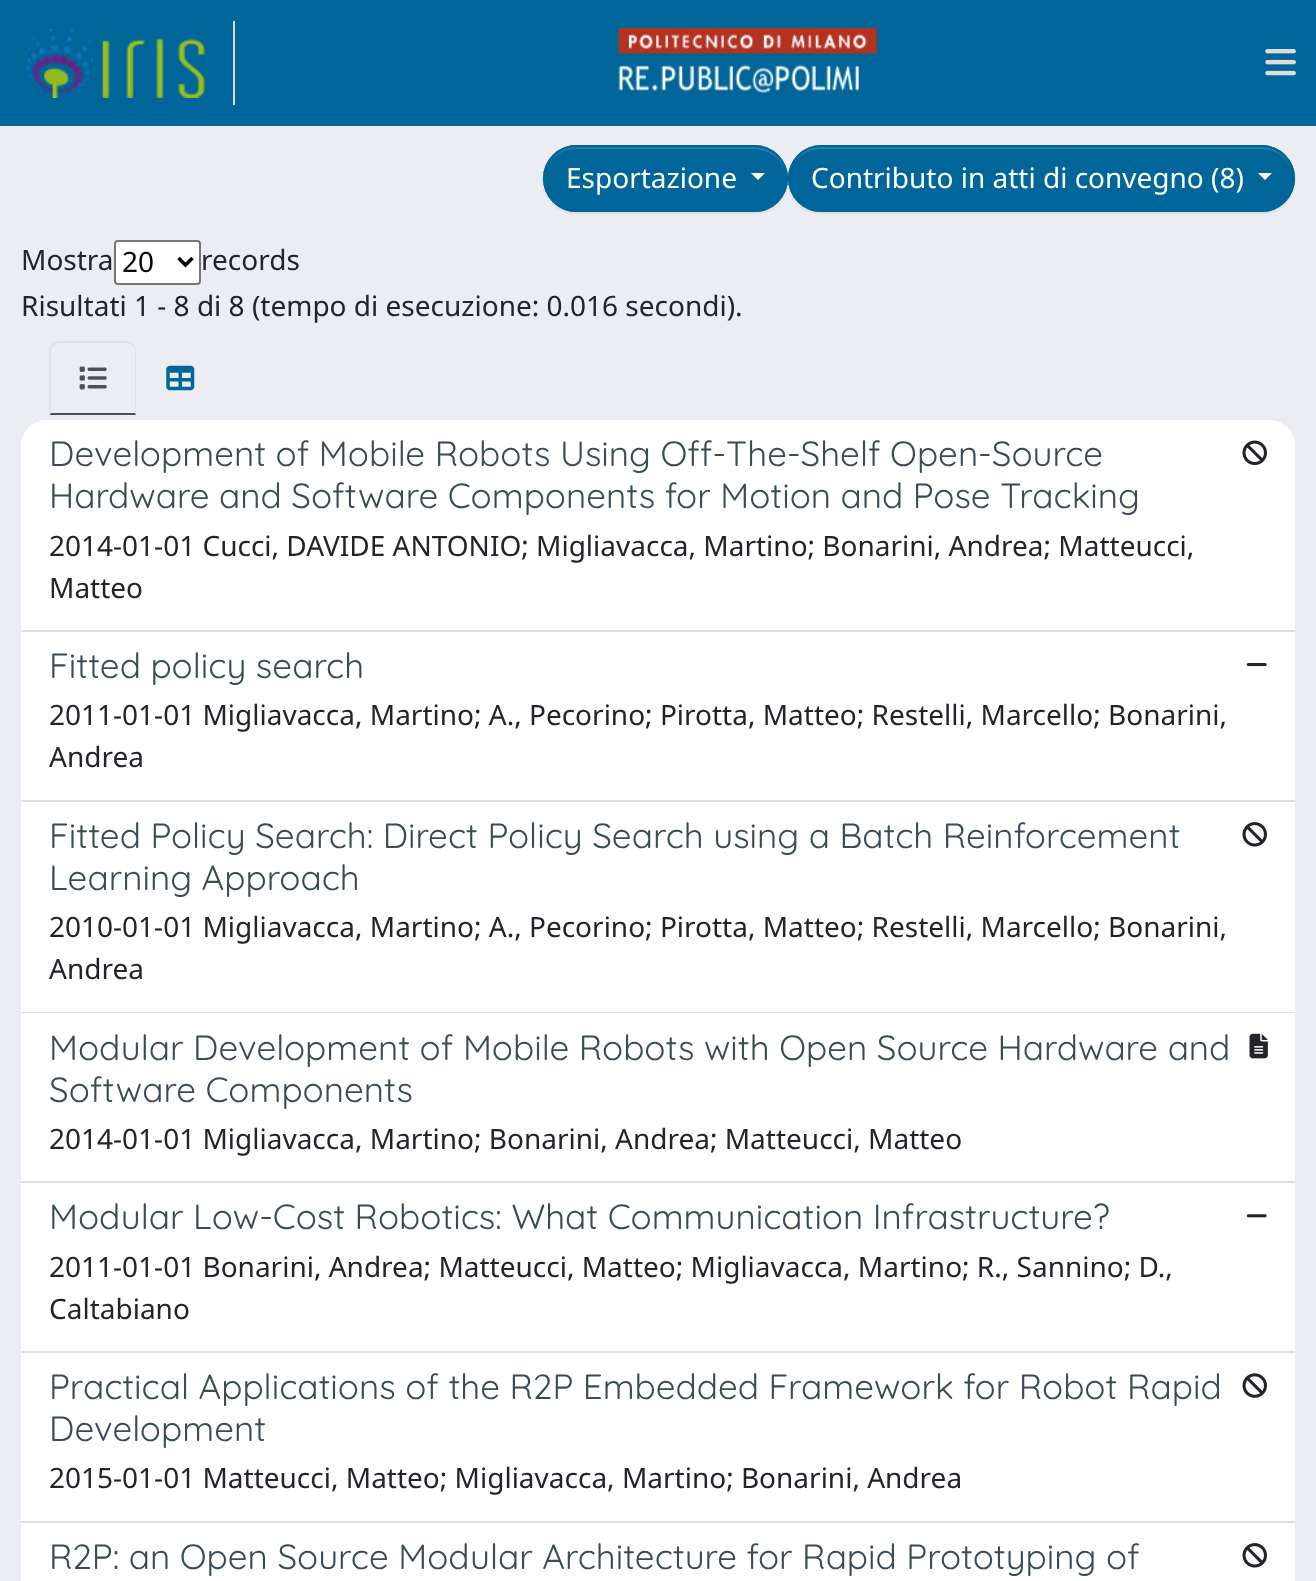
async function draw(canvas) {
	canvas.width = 1316;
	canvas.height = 1581;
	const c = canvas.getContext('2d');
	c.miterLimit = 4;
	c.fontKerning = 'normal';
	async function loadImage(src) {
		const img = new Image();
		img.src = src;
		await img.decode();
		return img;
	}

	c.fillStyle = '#ecedf2';
	c.fillRect(0, 0, 1316, 1581);
	c.fillStyle = '#069';
	c.fillRect(0, 0, 1316, 126);
	c.fillStyle = '#ddd';
	c.fillRect(233, 21, 2, 84);
	c.drawImage(await loadImage('img1.png'), 22, 28, 183, 70);
	c.drawImage(await loadImage('img2.png'), 618, 28, 259, 65);
	c.drawImage(await loadImage('img3.png'), 1265, 49, 31, 27);
	c.fillStyle = '#00000012';
	c.filter = 'blur(1px)';
	c.beginPath();
	c.roundRect(788, 147, 507, 67, 33.5);
	c.fill();
	c.filter = 'none';
	c.fillStyle = '#069';
	c.beginPath();
	c.roundRect(788, 145, 507, 67, 33.5);
	c.fill();
	c.fillStyle = '#267da8';
	c.beginPath();
	c.moveTo(821, 149);
	c.lineTo(1262, 149);
	c.bezierCurveTo(1279, 149, 1293, 163, 1293, 179);
	c.bezierCurveTo(1293, 162, 1279, 147, 1262, 147);
	c.lineTo(820, 147);
	c.bezierCurveTo(803, 147, 789, 162, 789, 179);
	c.bezierCurveTo(789, 163, 803, 149, 821, 149);
	c.closePath();
	c.fill();
	c.beginPath();
	c.roundRect(789, 146, 505, 65, 32.5);
	c.strokeStyle = '#069';
	c.lineWidth = 2;
	c.stroke();
	c.fillStyle = '#00000012';
	c.filter = 'blur(1px)';
	c.beginPath();
	c.roundRect(543, 147, 245, 67, 33.5);
	c.fill();
	c.filter = 'none';
	c.fillStyle = '#069';
	c.beginPath();
	c.roundRect(543, 145, 245, 67, 33.5);
	c.fill();
	c.fillStyle = '#267da8';
	c.beginPath();
	c.moveTo(576, 149);
	c.lineTo(754, 149);
	c.bezierCurveTo(772, 149, 786, 163, 786, 179);
	c.lineTo(786, 178);
	c.bezierCurveTo(786, 161, 772, 147, 754, 147);
	c.lineTo(576, 147);
	c.bezierCurveTo(558, 147, 544, 161, 544, 178);
	c.lineTo(544, 179);
	c.bezierCurveTo(544, 163, 558, 149, 576, 149);
	c.closePath();
	c.fill();
	c.beginPath();
	c.roundRect(544, 146, 243, 65, 32.5);
	c.stroke();
	c.font = '28px Noto Sans';
	c.fillStyle = '#fff';
	c.fillText('Esportazione', 566, 188);
	c.beginPath();
	c.moveTo(751, 173);
	c.lineTo(765, 173);
	c.lineTo(758, 180);
	c.closePath();
	c.fill();
	c.fillText('Contributo in atti di convegno (8)', 811, 188);
	c.beginPath();
	c.moveTo(1258, 173);
	c.lineTo(1272, 173);
	c.lineTo(1265, 180);
	c.closePath();
	c.fill();
	c.fillStyle = '#212529';
	c.fillText('Mostra', 21, 270);
	c.fillStyle = '#fff';
	c.beginPath();
	c.roundRect(115, 241, 85, 43, 3);
	c.fill();
	c.strokeStyle = '#767676';
	c.stroke();
	c.beginPath();
	c.moveTo(178.5, 258);
	c.lineTo(185.5, 265);
	c.lineTo(192.5, 258);
	c.strokeStyle = '#000';
	c.lineWidth = 3.5;
	c.stroke();
	c.fillStyle = '#000';
	c.fillText('20', 122, 272);
	c.fillStyle = '#212529';
	c.fillText('records', 201, 270);
	c.fillText('Risultati 1 - 8 di 8 (tempo di esecuzione: 0.016 secondi).', 21, 316);
	c.fillStyle = '#dee2e6';
	c.beginPath();
	c.moveTo(60, 343);
	c.bezierCurveTo(57, 343, 55, 344, 54, 346);
	c.lineTo(52, 344);
	c.bezierCurveTo(54, 343, 56, 342, 58, 341);
	c.lineTo(128, 341);
	c.bezierCurveTo(130, 342, 132, 343, 133, 344);
	c.lineTo(132, 346);
	c.bezierCurveTo(131, 344, 128, 343, 126, 343);
	c.closePath();
	c.fill();
	c.beginPath();
	c.moveTo(133, 344);
	c.bezierCurveTo(135, 346, 136, 349, 136, 352);
	c.lineTo(136, 414);
	c.lineTo(135, 413);
	c.lineTo(135, 352);
	c.bezierCurveTo(135, 349, 134, 347, 132, 346);
	c.closePath();
	c.fill();
	c.fillStyle = '#495057';
	c.beginPath();
	c.moveTo(136, 415);
	c.lineTo(49, 415);
	c.lineTo(51, 413);
	c.lineTo(135, 413);
	c.closePath();
	c.fill();
	c.fillStyle = '#dee2e6';
	c.beginPath();
	c.moveTo(49, 415);
	c.lineTo(51, 413);
	c.lineTo(51, 352);
	c.bezierCurveTo(51, 350, 52, 347, 54, 346);
	c.lineTo(52, 344);
	c.bezierCurveTo(50, 346, 49, 349, 49, 352);
	c.closePath();
	c.fill();
	c.drawImage(await loadImage('img4.png'), 79, 366, 28, 24);
	c.drawImage(await loadImage('img5.png'), 166, 365, 29, 26);
	c.fillStyle = '#fff';
	c.beginPath();
	c.roundRect(21, 420, 1274, 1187, 26);
	c.fill();
	c.beginPath();
	c.roundRect(21, 420, 1274, 212, [26, 26, 0, 0]);
	c.fill();
	c.fillStyle = '#dfdfdf';
	c.fillRect(21, 630, 1274, 2);
	c.font = '300 35px Quicksand';
	c.fillStyle = '#3a4b55';
	c.fillText('Development of Mobile Robots Using Off-The-Shelf Open-Source', 49, 466);
	c.fillText('Hardware and Software Components for Motion and Pose Tracking', 49, 508);
	c.drawImage(await loadImage('img6.png'), 1242, 440, 25, 26);
	c.font = '28px Noto Sans';
	c.fillStyle = '#212529';
	c.fillText('2014-01-01 Cucci, DAVIDE ANTONIO; Migliavacca, Martino; Bonarini, Andrea; Matteucci,', 49, 556);
	c.fillText('Matteo', 49, 598);
	c.fillStyle = '#dfdfdf';
	c.fillRect(21, 800, 1274, 2);
	c.font = '300 35px Quicksand';
	c.fillStyle = '#3a4b55';
	c.fillText('Fitted policy search', 49, 678);
	c.drawImage(await loadImage('img7.png'), 1246, 663, 21, 4);
	c.font = '28px Noto Sans';
	c.fillStyle = '#212529';
	c.fillText('2011-01-01 Migliavacca, Martino; A., Pecorino; Pirotta, Matteo; Restelli, Marcello; Bonarini,', 49, 725);
	c.fillText('Andrea', 49, 767);
	c.fillStyle = '#dfdfdf';
	c.fillRect(21, 1012, 1274, 1);
	c.font = '300 35px Quicksand';
	c.fillStyle = '#3a4b55';
	c.fillText('Fitted Policy Search: Direct Policy Search using a Batch Reinforcement', 49, 848);
	c.fillText('Learning Approach', 49, 890);
	c.drawImage(await loadImage('img8.png'), 1242, 822, 25, 25);
	c.font = '28px Noto Sans';
	c.fillStyle = '#212529';
	c.fillText('2010-01-01 Migliavacca, Martino; A., Pecorino; Pirotta, Matteo; Restelli, Marcello; Bonarini,', 49, 937);
	c.fillText('Andrea', 49, 979);
	c.fillStyle = '#dfdfdf';
	c.fillRect(21, 1181, 1274, 2);
	c.font = '300 35px Quicksand';
	c.fillStyle = '#3a4b55';
	c.fillText('Modular Development of Mobile Robots with Open Source Hardware and', 49, 1060);
	c.fillText('Software Components', 49, 1102);
	c.drawImage(await loadImage('img9.png'), 1249, 1033, 19, 26);
	c.font = '28px Noto Sans';
	c.fillStyle = '#212529';
	c.fillText('2014-01-01 Migliavacca, Martino; Bonarini, Andrea; Matteucci, Matteo', 49, 1149);
	c.fillStyle = '#dfdfdf';
	c.fillRect(21, 1351, 1274, 2);
	c.font = '300 35px Quicksand';
	c.fillStyle = '#3a4b55';
	c.fillText('Modular Low-Cost Robotics: What Communication Infrastructure?', 49, 1229);
	c.drawImage(await loadImage('img10.png'), 1246, 1214, 21, 4);
	c.font = '28px Noto Sans';
	c.fillStyle = '#212529';
	c.fillText('2011-01-01 Bonarini, Andrea; Matteucci, Matteo; Migliavacca, Martino; R., Sannino; D.,', 49, 1277);
	c.fillText('Caltabiano', 49, 1319);
	c.fillStyle = '#dfdfdf';
	c.fillRect(21, 1521, 1274, 2);
	c.font = '300 35px Quicksand';
	c.fillStyle = '#3a4b55';
	c.fillText('Practical Applications of the R2P Embedded Framework for Robot Rapid', 49, 1399);
	c.fillText('Development', 49, 1441);
	c.drawImage(await loadImage('img11.png'), 1242, 1373, 25, 25);
	c.font = '28px Noto Sans';
	c.fillStyle = '#212529';
	c.fillText('2015-01-01 Matteucci, Matteo; Migliavacca, Martino; Bonarini, Andrea', 49, 1488);
	c.font = '300 35px Quicksand';
	c.fillStyle = '#3a4b55';
	c.fillText('R2P: an Open Source Modular Architecture for Rapid Prototyping of', 49, 1569);
	c.drawImage(await loadImage('img8.png'), 1242, 1543, 25, 25);
}

draw(document.querySelector('canvas'));
